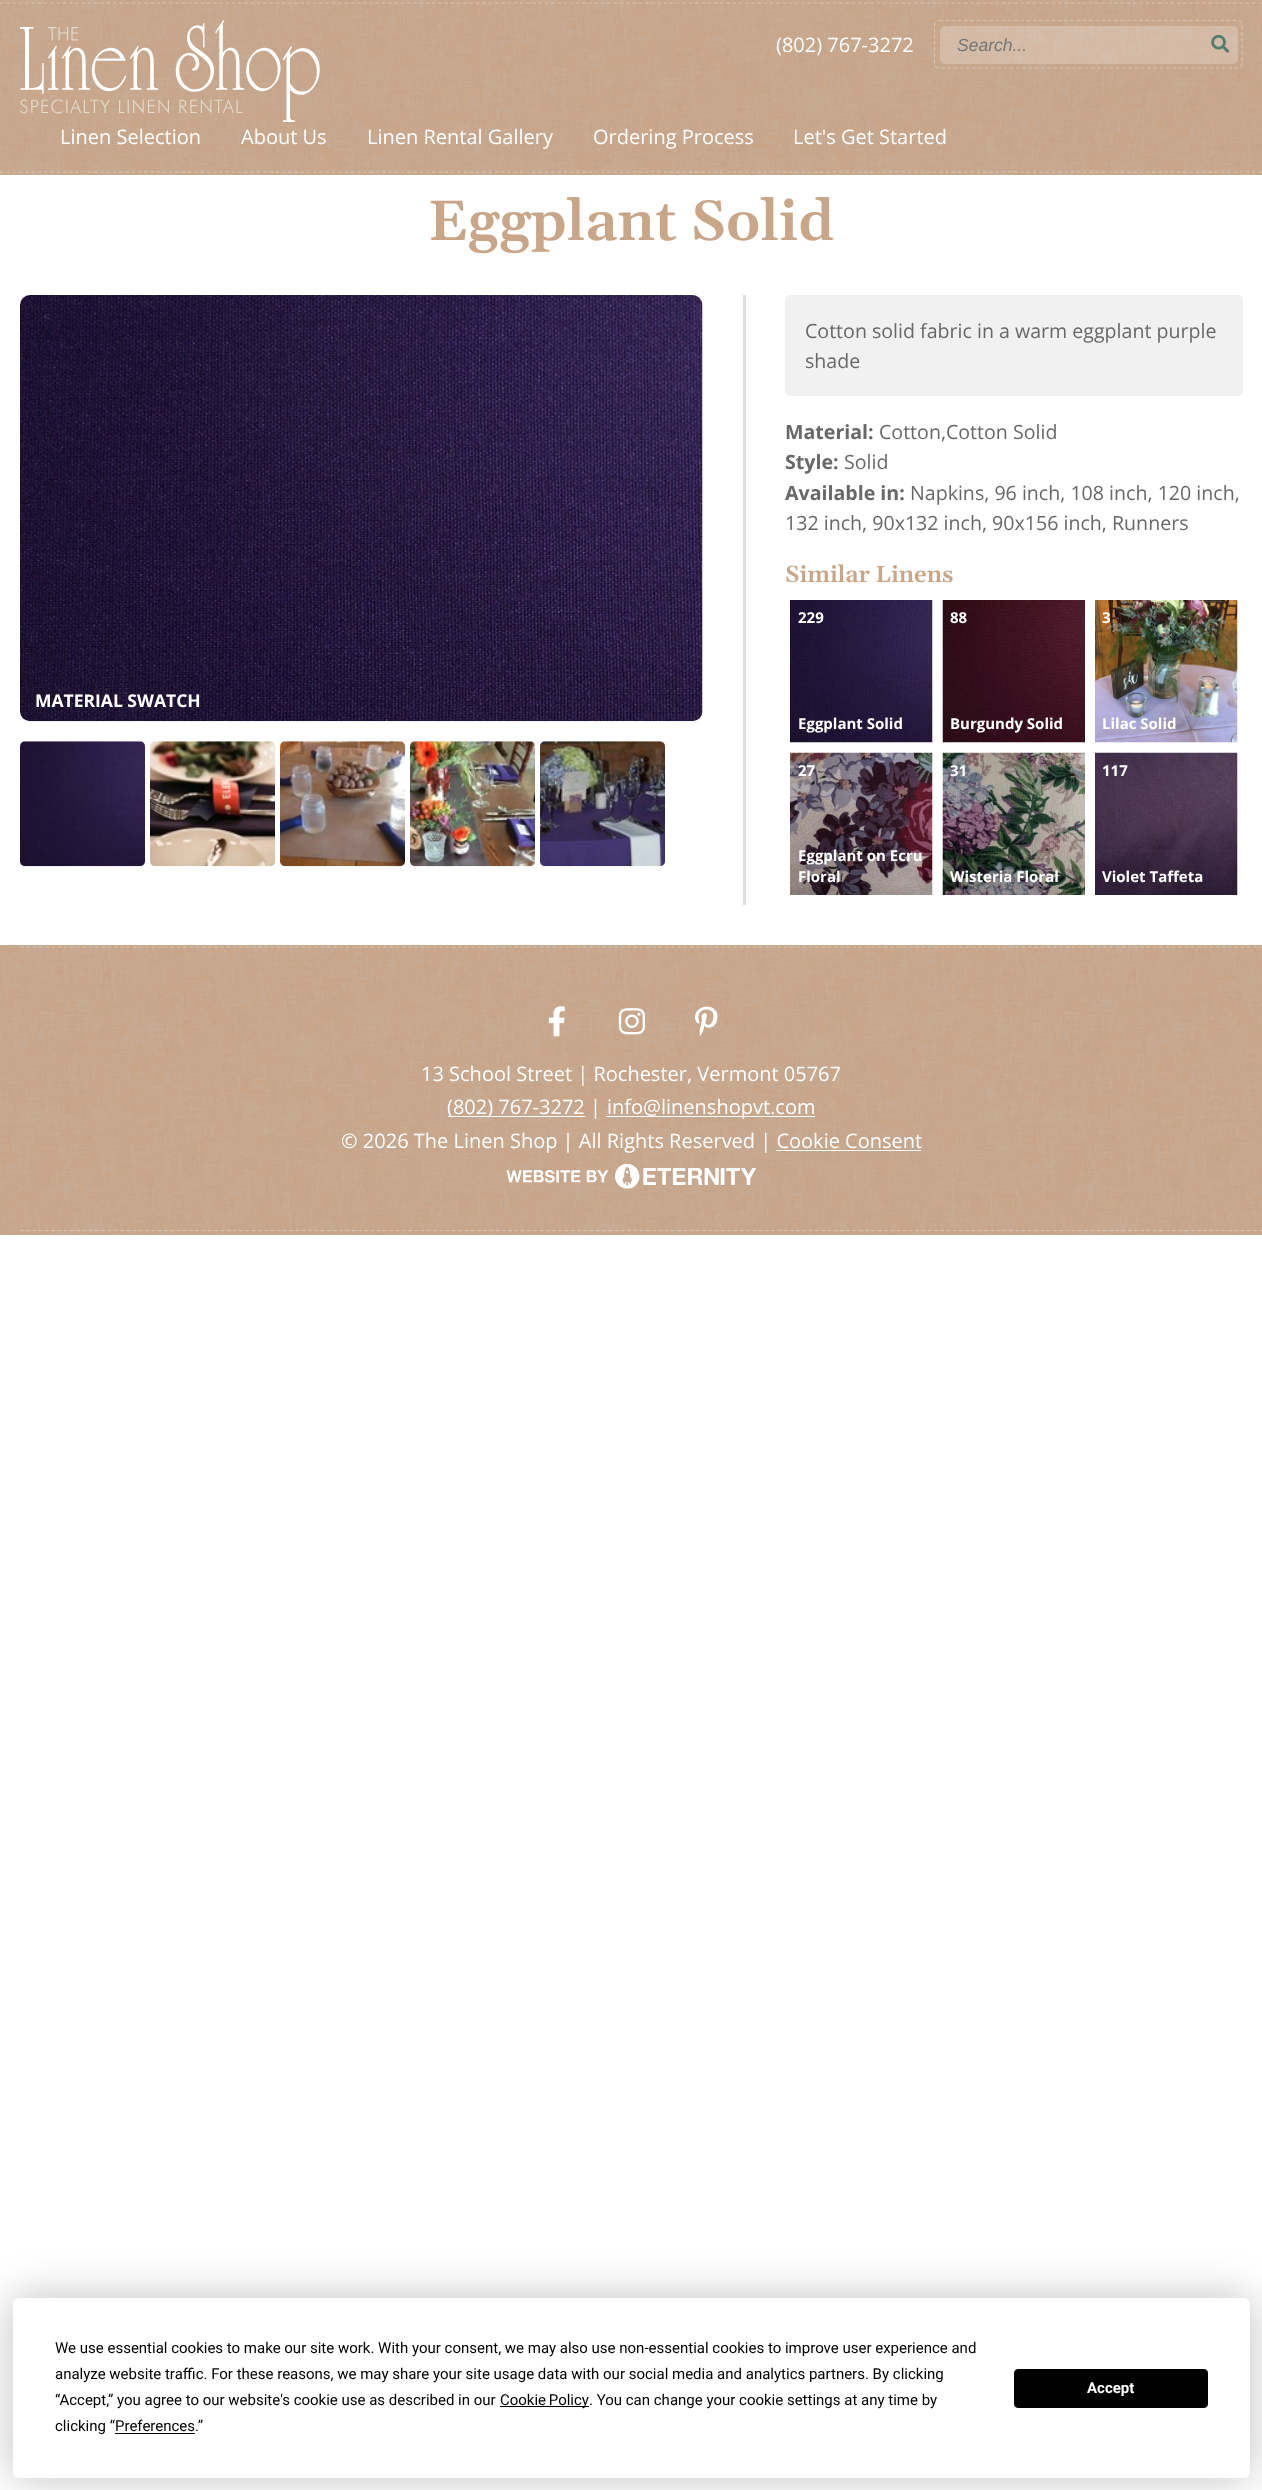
async function draw(canvas) {
	canvas.width = 1262;
	canvas.height = 2490;
	const c = canvas.getContext('2d');
	c.miterLimit = 4;
	c.fontKerning = 'normal';
	async function loadImage(src) {
		const img = new Image();
		img.src = src;
		await img.decode();
		return img;
	}

	c.fillStyle = '#fff';
	c.fillRect(0, 0, 1262, 2490);
	c.fillStyle = '#caa689';
	c.fillRect(0, 0, 1262, 175);
	c.drawImage(await loadImage('img1.png'), 0, 0, 1262, 175);
	c.beginPath();
	c.moveTo(0, 3);
	c.lineTo(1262.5, 3);
	c.strokeStyle = '#ffffff4d';
	c.lineWidth = 1.2;
	c.setLineDash([3.75, 2.51]);
	c.stroke();
	c.drawImage(await loadImage('img2.png'), 20, 20, 300, 102);
	c.font = '20px Open Sans';
	c.fillStyle = '#fff';
	c.fillText('(802) 767-3272', 776, 52);
	c.beginPath();
	c.moveTo(939, 20.5);
	c.lineTo(1237.5, 20.5);
	c.bezierCurveTo(1240, 20.5, 1242, 22.5, 1242, 25);
	c.lineTo(1242, 64);
	c.bezierCurveTo(1242, 66, 1240, 68, 1237.5, 68);
	c.lineTo(939, 68);
	c.bezierCurveTo(936.5, 68, 934.5, 66, 934.5, 64);
	c.lineTo(934.5, 25);
	c.bezierCurveTo(934.5, 22.5, 936.5, 20.5, 939, 20.5);
	c.closePath();
	c.setLineDash([3.75, 2.5]);
	c.stroke();
	c.fillStyle = '#ffffff3b';
	c.beginPath();
	c.roundRect(940, 26, 298, 38, 5);
	c.fill();
	c.font = 'italic 17.5px Liberation Sans';
	c.fillStyle = '#757575';
	c.fillText('Search...', 957, 51);
	c.drawImage(await loadImage('img3.png'), 1211, 34, 19, 19);
	c.font = '20px Open Sans';
	c.fillStyle = '#fff';
	for (const [text, x, y] of [
		['Linen Selection', 60, 144],
		['About Us', 241, 144],
		['Linen Rental Gallery', 367, 144],
		['Ordering Process', 593, 144],
		['Let\'s Get Started', 793, 144],
	]) {
		c.fillText(text, x, y);
	}
	c.beginPath();
	c.moveTo(0, 172);
	c.lineTo(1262.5, 172);
	c.setLineDash([3.75, 2.51]);
	c.stroke();
	c.font = '600 56.75px Gelasio';
	c.fillStyle = '#caa689';
	c.fillText('Eggplant Solid', 428, 240);
	c.drawImage(await loadImage('img4.png'), 20, 295, 683, 427);
	c.font = 'bold 17.5px Open Sans';
	c.fillStyle = '#fff';
	c.fillText('MATERIAL SWATCH', 35, 707);
	c.drawImage(await loadImage('img5.png'), 20, 741, 125, 126);
	c.drawImage(await loadImage('img6.png'), 150, 741, 125, 126);
	c.drawImage(await loadImage('img7.png'), 280, 741, 125, 126);
	c.drawImage(await loadImage('img8.png'), 410, 741, 125, 126);
	c.drawImage(await loadImage('img9.png'), 540, 741, 125, 126);
	c.fillStyle = '#e0e0e0';
	c.fillRect(743, 295, 3, 610);
	c.fillStyle = '#f1f1f1';
	c.beginPath();
	c.roundRect(785, 295, 458, 101, 5);
	c.fill();
	c.font = '19.6px Open Sans';
	c.fillStyle = '#686868';
	c.fillText('Cotton solid fabric in a warm eggplant purple', 805, 338);
	c.fillText('shade', 805, 368);
	c.font = 'bold 19.6px Open Sans';
	c.fillText('Material:', 785, 439);
	c.font = '19.6px Open Sans';
	c.fillText('Cotton,Cotton Solid', 879, 439);
	c.font = 'bold 19.6px Open Sans';
	c.fillText('Style:', 785, 469);
	c.font = '19.6px Open Sans';
	c.fillText('Solid', 844, 469);
	c.font = 'bold 19.6px Open Sans';
	c.fillText('Available in:', 785, 500);
	c.font = '19.6px Open Sans';
	c.fillText('Napkins, 96 inch, 108 inch, 120 inch,', 910, 500);
	c.fillText('132 inch, 90x132 inch, 90x156 inch, Runners', 785, 530);
	c.font = '600 23.25px Gelasio';
	c.fillStyle = '#caa689';
	c.fillText('Similar Linens', 785, 582);
	c.drawImage(await loadImage('img10.png'), 790, 600, 143, 143);
	c.font = 'bold 15px Open Sans';
	c.fillStyle = '#fff';
	c.fillText('229', 798, 623);
	c.fillText('Eggplant Solid', 798, 729);
	c.drawImage(await loadImage('img11.png'), 942, 600, 143, 143);
	c.fillText('88', 950, 623);
	c.fillText('Burgundy Solid', 950, 729);
	c.drawImage(await loadImage('img12.png'), 1095, 600, 143, 143);
	c.fillText('3', 1102, 623);
	c.fillText('Lilac Solid', 1102, 729);
	c.drawImage(await loadImage('img13.png'), 790, 752, 143, 143);
	for (const [text, x, y] of [
		['27', 798, 776],
		['Eggplant on Ecru', 798, 861],
		['Floral', 798, 882],
	]) {
		c.fillText(text, x, y);
	}
	c.drawImage(await loadImage('img14.png'), 942, 752, 143, 143);
	c.fillText('31', 950, 776);
	c.fillText('Wisteria Floral', 950, 882);
	c.drawImage(await loadImage('img15.png'), 1095, 752, 143, 143);
	c.fillText('117', 1102, 776);
	c.fillText('Violet Taffeta', 1102, 882);
	c.fillStyle = '#caa689';
	c.fillRect(0, 945, 1262, 290);
	c.drawImage(await loadImage('img16.png'), 0, 945, 1262, 290);
	c.beginPath();
	c.moveTo(20, 947);
	c.lineTo(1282.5, 947);
	c.stroke();
	c.drawImage(await loadImage('img17.png'), 548, 1006, 17, 31);
	c.drawImage(await loadImage('img18.png'), 618, 1008, 28, 27);
	c.drawImage(await loadImage('img19.png'), 695, 1006, 23, 30);
	c.font = '20px Open Sans';
	c.fillStyle = '#fff';
	c.fillText('13 School Street | Rochester, Vermont 05767', 421, 1081);
	c.fillRect(448, 1116, 137, 1);
	c.fillText('(802) 767-3272 |', 447, 1114);
	c.fillRect(606, 1116, 209, 1);
	c.fillText('info@linenshopvt.com', 607, 1114);
	c.fillText('© 2026 The Linen Shop | All Rights Reserved | Cookie Consent', 341, 1148);
	c.fillRect(776, 1150, 145, 1);
	c.drawImage(await loadImage('img20.png'), 506, 1164, 250, 25);
	c.beginPath();
	c.moveTo(20, 1230.5);
	c.lineTo(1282.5, 1230.5);
	c.stroke();
	c.fillStyle = '#00000040';
	c.filter = 'blur(22px)';
	c.beginPath();
	c.roundRect(13, 2298, 1237, 180, 6);
	c.fill();
	c.filter = 'none';
	c.fillStyle = '#fff';
	c.beginPath();
	c.roundRect(13, 2298, 1237, 180, 6);
	c.fill();
	c.font = '15px Roboto';
	c.fillStyle = '#000';
	for (const [text, x, y] of [
		['We use essential cookies to make our site work. With your consent, we may also use non-essential cookies to improve user experience and', 55, 2353],
		['analyze website traffic. For these reasons, we may share your site usage data with our social media and analytics partners. By clicking', 55, 2379],
		['“Accept,” you agree to our website\'s cookie use as described in our', 55, 2405],
	]) {
		c.fillText(text, x, y);
	}
	c.fillRect(500, 2406, 89, 1);
	c.wordSpacing = '-1px';
	c.fillText('Cookie Policy', 500, 2405);
	c.wordSpacing = '0px';
	c.fillText('. You can change your cookie settings at any time by', 589, 2405);
	c.fillText('clicking “Preferences.”', 55, 2431);
	c.fillRect(115, 2433, 80, 1);
	c.beginPath();
	c.roundRect(1014.5, 2369.5, 193, 38, 3.5);
	c.fill();
	c.strokeStyle = '#000';
	c.lineWidth = 1;
	c.setLineDash([]);
	c.stroke();
	c.font = 'bold 15px Roboto';
	c.fillStyle = '#fff';
	c.fillText('Accept', 1087, 2393);
}

draw(document.querySelector('canvas'));
